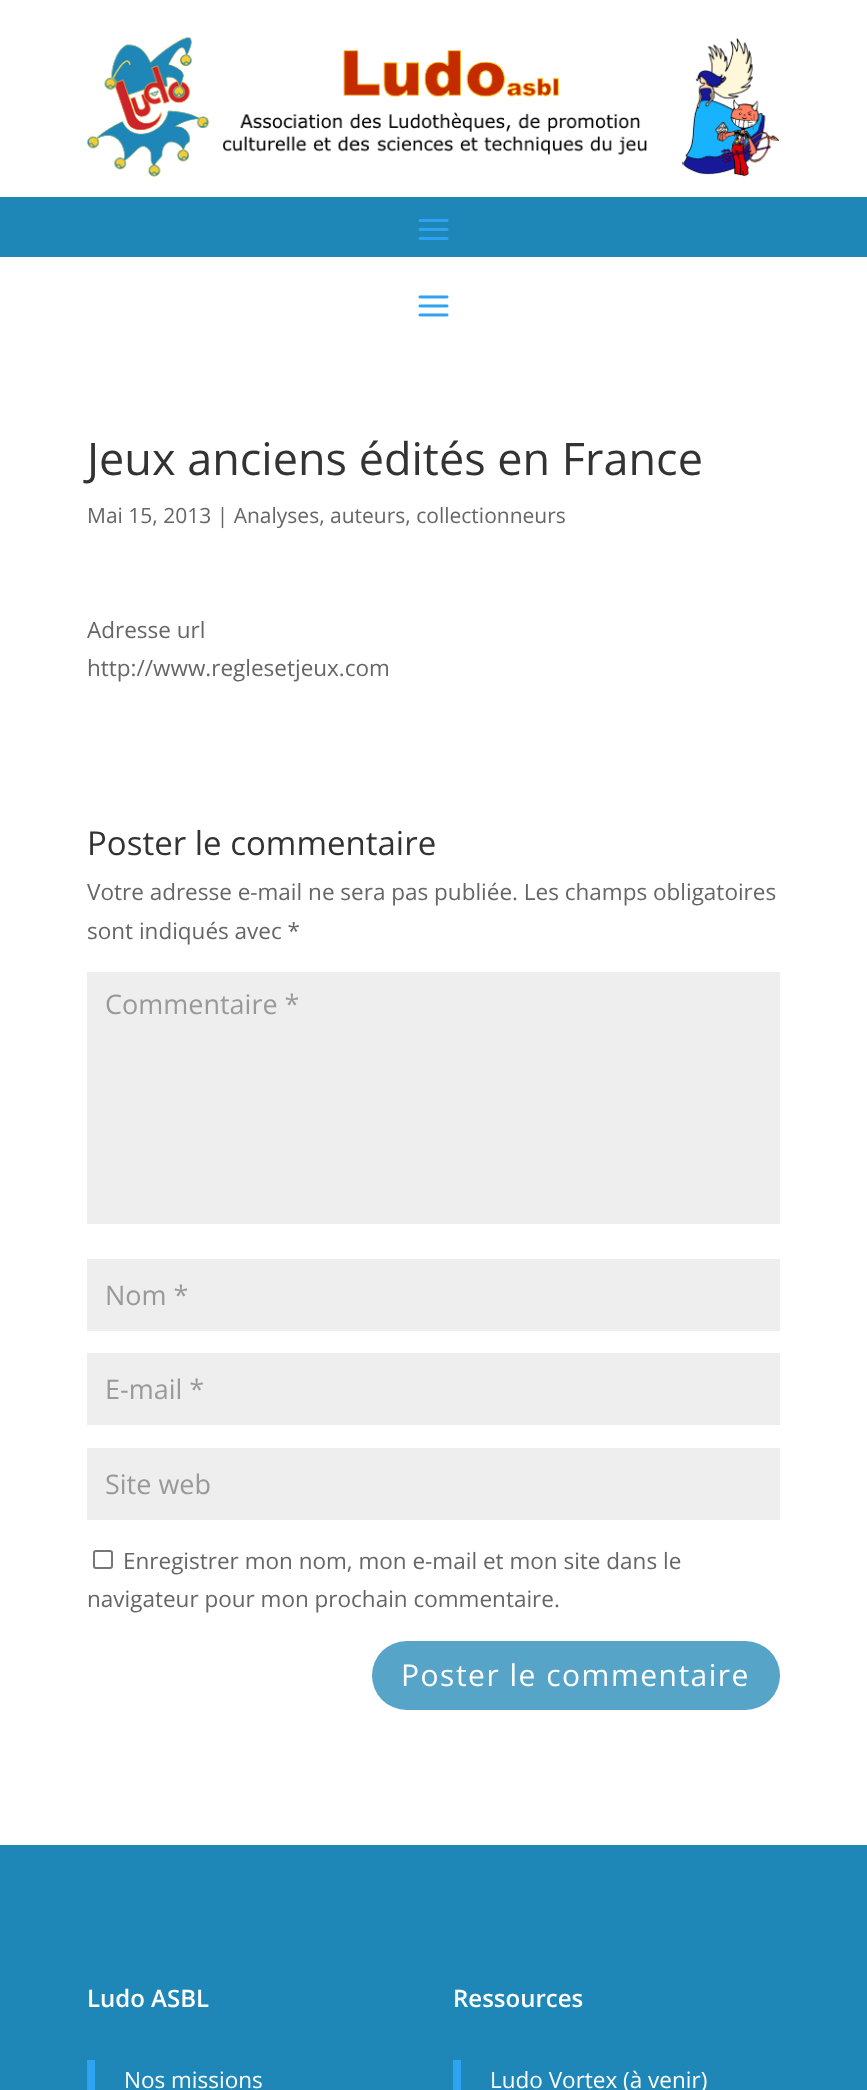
async function draw(canvas) {
	canvas.width = 867;
	canvas.height = 2090;
	const c = canvas.getContext('2d');
	c.miterLimit = 4;
	c.fontKerning = 'normal';
	async function loadImage(src) {
		const img = new Image();
		img.src = src;
		await img.decode();
		return img;
	}

	c.fillStyle = '#1e87b7';
	c.fillRect(0, 0, 867, 2090);
	c.fillStyle = '#fff';
	c.fillRect(0, 0, 867, 197);
	c.drawImage(await loadImage('img1.png'), 87, 37, 693, 140);
	c.drawImage(await loadImage('img2.png'), 418, 219, 31, 21);
	c.fillRect(0, 257, 867, 1588);
	c.drawImage(await loadImage('img3.png'), 418, 295, 31, 22);
	c.font = '45px Open Sans';
	c.fillStyle = '#333';
	c.fillText('Jeux anciens édités en France', 87, 475);
	c.font = '21px Open Sans';
	c.fillStyle = '#666';
	c.fillText('Mai 15, 2013 | Analyses, auteurs, collectionneurs', 87, 523);
	c.font = '22.5px Open Sans';
	c.fillText('Adresse url', 87, 638);
	c.fillText('http://www.reglesetjeux.com', 87, 676);
	c.font = '33px Open Sans';
	c.fillStyle = '#333';
	c.fillText('Poster le commentaire', 87, 855);
	c.font = '22.5px Open Sans';
	c.fillStyle = '#666';
	c.fillText('Votre adresse e-mail ne sera pas publiée. Les champs obligatoires', 87, 900);
	c.fillText('sont indiqués avec *', 87, 939);
	c.fillStyle = '#eee';
	c.fillRect(87, 972, 693, 252);
	c.font = '27px Open Sans';
	c.fillStyle = '#999';
	c.fillText('Commentaire *', 105, 1014);
	c.fillStyle = '#eee';
	c.fillRect(87, 1259, 693, 72);
	c.fillStyle = '#999';
	c.fillText('Nom *', 105, 1305);
	c.fillStyle = '#eee';
	c.fillRect(87, 1353, 693, 72);
	c.fillStyle = '#999';
	c.fillText('E-mail *', 105, 1399);
	c.fillStyle = '#eee';
	c.fillRect(87, 1448, 693, 72);
	c.fillStyle = '#999';
	c.fillText('Site web', 105, 1494);
	c.beginPath();
	c.roundRect(94, 1551, 18, 17, 2);
	c.strokeStyle = '#767676';
	c.lineWidth = 2;
	c.stroke();
	c.font = '22.5px Open Sans';
	c.fillStyle = '#666';
	c.fillText('Enregistrer mon nom, mon e-mail et mon site dans le', 123, 1569);
	c.fillText('navigateur pour mon prochain commentaire.', 87, 1607);
	c.fillStyle = '#56a5c9';
	c.beginPath();
	c.roundRect(372, 1641, 408, 69, 34.5);
	c.fill();
	c.letterSpacing = '1.5px';
	c.font = '30px Open Sans';
	c.fillStyle = '#fff';
	c.fillText('Poster le commentaire', 401, 1686);
	c.letterSpacing = '0px';
	c.font = '600 24px Open Sans';
	c.fillText('Ludo ASBL', 87, 2007);
	c.fillStyle = '#2ea3f2';
	c.fillRect(87, 2060, 8, 30);
	c.font = '22.5px Open Sans';
	c.fillStyle = '#fff';
	c.fillText('Nos missions', 124, 2088);
	c.font = '600 24px Open Sans';
	c.fillText('Ressources', 453, 2007);
	c.fillStyle = '#2ea3f2';
	c.fillRect(453, 2060, 8, 30);
	c.font = '22.5px Open Sans';
	c.fillStyle = '#fff';
	c.fillText('Ludo Vortex (à venir)', 490, 2088);
}

draw(document.querySelector('canvas'));
